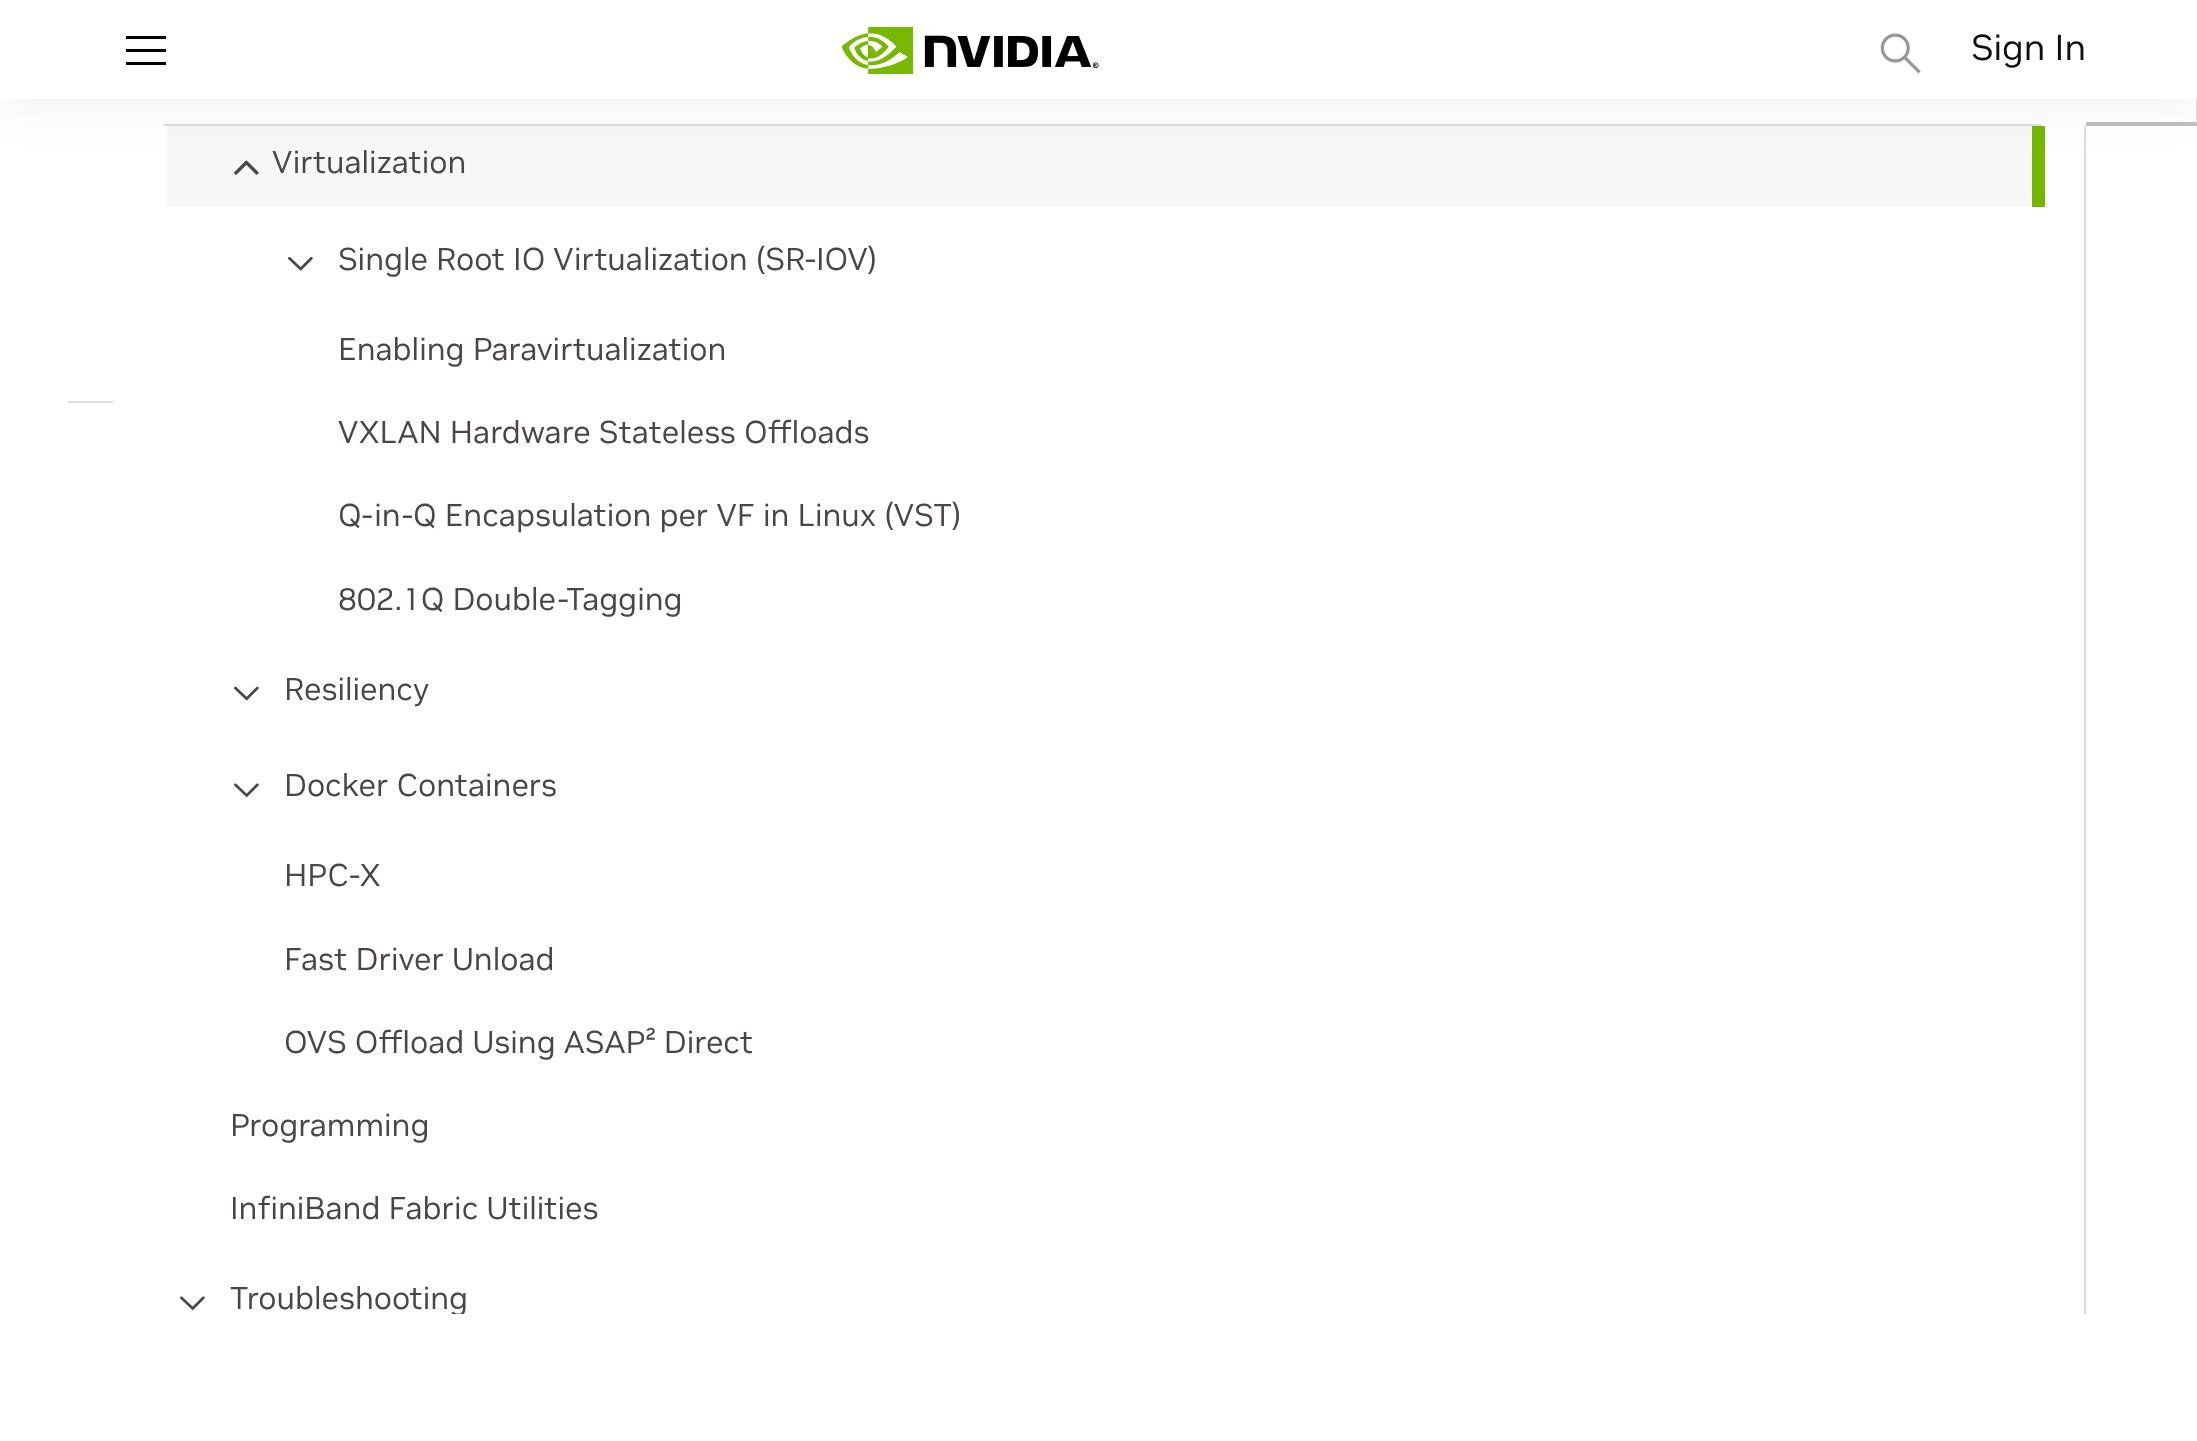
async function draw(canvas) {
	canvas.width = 2197;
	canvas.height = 1441;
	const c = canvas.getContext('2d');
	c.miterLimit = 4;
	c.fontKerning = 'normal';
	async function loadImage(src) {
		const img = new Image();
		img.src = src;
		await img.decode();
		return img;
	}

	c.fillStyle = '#fff';
	c.fillRect(0, 0, 2197, 1441);
	c.fillStyle = '#ddd';
	c.fillRect(164, 124, 1877, 2);
	c.beginPath();
	c.moveTo(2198, -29);
	c.lineTo(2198, 126);
	c.lineTo(2196, 122);
	c.lineTo(2196, -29);
	c.closePath();
	c.fill();
	c.fillStyle = '#c0c0c0';
	c.beginPath();
	c.moveTo(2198, 126);
	c.lineTo(2086, 126);
	c.lineTo(2086, 122);
	c.lineTo(2196, 122);
	c.closePath();
	c.fill();
	c.fillStyle = '#ddd';
	c.fillRect(2084, 126, 2, 1188);
	c.fillStyle = '#f7f7f7';
	c.fillRect(167, 126, 1865, 81);
	c.drawImage(await loadImage('img3.png'), 234, 160, 25, 15);
	c.fillStyle = '#74b900';
	c.fillRect(2032, 126, 13, 81);
	c.fillStyle = '#0000000d';
	c.filter = 'blur(22.5px)';
	c.beginPath();
	c.rect(0, 11, 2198, 99);
	c.fill();
	c.filter = 'none';
	c.fillStyle = '#fff';
	c.fillRect(0, 0, 2197, 99);
	c.fillStyle = '#000';
	c.beginPath();
	c.moveTo(126, 52);
	c.lineTo(126, 49);
	c.lineTo(166, 49);
	c.lineTo(166, 52);
	c.closePath();
	c.moveTo(126, 39);
	c.lineTo(126, 36);
	c.lineTo(166, 36);
	c.lineTo(166, 39);
	c.closePath();
	c.moveTo(126, 65);
	c.lineTo(126, 62);
	c.lineTo(166, 62);
	c.lineTo(166, 65);
	c.closePath();
	c.fill('evenodd');
	c.drawImage(await loadImage('img1.png'), 842, 27, 257, 47);
	c.drawImage(await loadImage('img2.png'), 1880, 33, 41, 41);
	c.font = '36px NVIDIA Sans';
	c.fillStyle = '#111';
	c.fillText('Sign In', 1971, 60);
	c.fillStyle = '#ddd';
	c.fillRect(68, 401, 45, 2);
	c.font = '31.5px NVIDIA Sans';
	c.fillStyle = '#4b4545';
	c.fillText('Virtualization', 272, 173);
	c.drawImage(await loadImage('img4.png'), 288, 257, 25, 14);
	for (const [text, x, y] of [
		['Single Root IO Virtualization (SR-IOV)', 338, 270],
		['Enabling Paravirtualization', 338, 360],
		['VXLAN Hardware Stateless Offloads', 338, 443],
		['Q-in-Q Encapsulation per VF in Linux (VST)', 338, 526],
		['802.1Q Double-Tagging', 338, 610],
	]) {
		c.fillText(text, x, y);
	}
	c.drawImage(await loadImage('img5.png'), 234, 686, 25, 15);
	c.fillText('Resiliency', 284, 700);
	c.drawImage(await loadImage('img6.png'), 234, 783, 25, 15);
	for (const [text, x, y] of [
		['Docker Containers', 284, 796],
		['HPC-X', 284, 886],
		['Fast Driver Unload', 284, 970],
		['OVS Offload Using ASAP² Direct', 284, 1053],
		['Programming', 230, 1136],
		['InfiniBand Fabric Utilities', 230, 1219],
	]) {
		c.fillText(text, x, y);
	}
	c.drawImage(await loadImage('img6.png'), 180, 1296, 25, 15);
	c.save();
	c.beginPath();
	c.rect(113, 126, 1971, 1188);
	c.clip();
	c.fillText('Troubleshooting', 230, 1309);
	c.restore();
}

draw(document.querySelector('canvas'));
